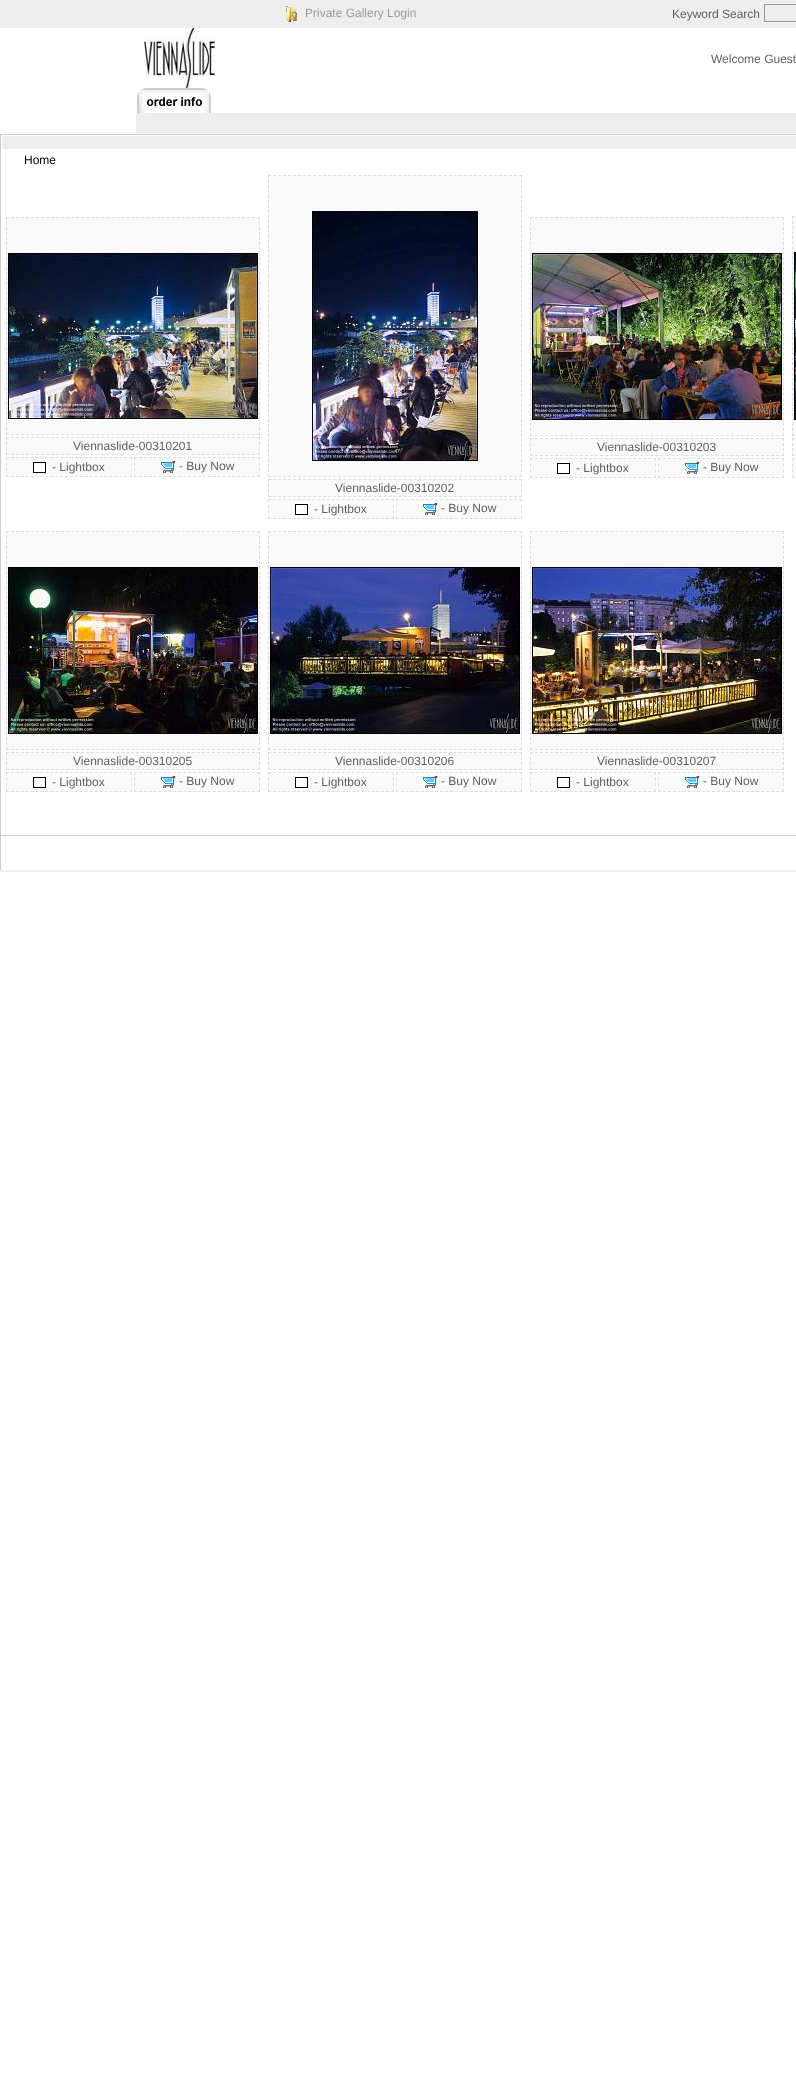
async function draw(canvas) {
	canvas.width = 796;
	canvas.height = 2097;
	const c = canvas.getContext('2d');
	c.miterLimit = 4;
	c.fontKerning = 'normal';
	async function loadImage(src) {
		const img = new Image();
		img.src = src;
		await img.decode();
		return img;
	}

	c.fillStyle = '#fff';
	c.fillRect(0, 0, 796, 2097);
	c.fillStyle = '#eee';
	c.fillRect(0, 0, 796, 28);
	c.drawImage(await loadImage('img1.png'), 286, 6, 11, 16);
	c.font = '12px Liberation Sans';
	c.fillStyle = '#999';
	c.fillText('Private Gallery Login', 305, 17);
	c.fillStyle = '#5f5f5f';
	c.fillText('Keyword Search', 672, 18);
	c.strokeStyle = '#999';
	c.strokeRect(764.5, 4.5, 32, 17);
	c.drawImage(await loadImage('img2.png'), 144, 28, 72, 60);
	c.fillText('Welcome Guest', 711, 63);
	c.drawImage(await loadImage('img3.png'), 137, 88, 74, 25);
	for (const [x, y, w, h, color] of [
		[136, 113, 660, 20, '#eee'],
		[0, 134, 796, 1, '#ccc'],
		[0, 134, 1, 736, '#ccc'],
		[2, 136, 794, 13, '#eee'],
	]) {
		c.fillStyle = color;
		c.fillRect(x, y, w, h);
	}
	c.fillStyle = '#000';
	c.fillText('Home', 24, 164);
	c.fillStyle = '#fafafa';
	c.fillRect(6, 217, 254, 218);
	c.beginPath();
	c.moveTo(6, 217.5);
	c.lineTo(260, 217.5);
	c.strokeStyle = '#ddd';
	c.setLineDash([3, 2.02]);
	c.stroke();
	c.beginPath();
	c.moveTo(259.5, 217);
	c.lineTo(259.5, 435);
	c.setLineDash([3, 2]);
	c.stroke();
	c.beginPath();
	c.moveTo(6, 434.5);
	c.lineTo(260, 434.5);
	c.setLineDash([3, 2.02]);
	c.stroke();
	c.beginPath();
	c.moveTo(6.5, 217);
	c.lineTo(6.5, 435);
	c.setLineDash([3, 2]);
	c.stroke();
	c.drawImage(await loadImage('img4.png'), 8, 253, 250, 166);
	c.fillRect(6, 437, 254, 18);
	c.beginPath();
	c.moveTo(6, 437.5);
	c.lineTo(260, 437.5);
	c.setLineDash([3, 2.02]);
	c.stroke();
	c.beginPath();
	c.moveTo(259.5, 437);
	c.lineTo(259.5, 455);
	c.setLineDash([3, 2]);
	c.stroke();
	c.beginPath();
	c.moveTo(6, 454.5);
	c.lineTo(260, 454.5);
	c.setLineDash([3, 2.02]);
	c.stroke();
	c.beginPath();
	c.moveTo(6.5, 437);
	c.lineTo(6.5, 455);
	c.setLineDash([3, 2]);
	c.stroke();
	c.fillStyle = '#5f5f5f';
	c.fillText('Viennaslide-00310201', 73, 450);
	c.fillStyle = '#fafafa';
	c.fillRect(6, 457, 126, 20);
	c.beginPath();
	c.moveTo(6, 457.5);
	c.lineTo(132, 457.5);
	c.setLineDash([3, 1.92]);
	c.stroke();
	c.beginPath();
	c.moveTo(131.5, 457);
	c.lineTo(131.5, 477);
	c.setLineDash([3, 2.67]);
	c.stroke();
	c.beginPath();
	c.moveTo(6, 476.5);
	c.lineTo(132, 476.5);
	c.setLineDash([3, 1.92]);
	c.stroke();
	c.beginPath();
	c.moveTo(6.5, 457);
	c.lineTo(6.5, 477);
	c.setLineDash([3, 2.67]);
	c.stroke();
	c.drawImage(await loadImage('img5.png'), 33, 460, 15, 13);
	c.fillStyle = '#5f5f5f';
	c.fillText('- Lightbox', 52, 471);
	c.fillStyle = '#fafafa';
	c.fillRect(134, 457, 126, 20);
	c.beginPath();
	c.moveTo(134, 457.5);
	c.lineTo(260, 457.5);
	c.setLineDash([3, 1.92]);
	c.stroke();
	c.beginPath();
	c.moveTo(259.5, 457);
	c.lineTo(259.5, 477);
	c.setLineDash([3, 2.67]);
	c.stroke();
	c.beginPath();
	c.moveTo(134, 476.5);
	c.lineTo(260, 476.5);
	c.setLineDash([3, 1.92]);
	c.stroke();
	c.beginPath();
	c.moveTo(134.5, 457);
	c.lineTo(134.5, 477);
	c.setLineDash([3, 2.67]);
	c.stroke();
	c.drawImage(await loadImage('img6.png'), 161, 460, 15, 13);
	c.fillStyle = '#5f5f5f';
	c.fillText('- Buy Now', 179, 470);
	c.fillStyle = '#fafafa';
	c.fillRect(530, 217, 254, 219);
	c.beginPath();
	c.moveTo(530, 217.5);
	c.lineTo(784, 217.5);
	c.setLineDash([3, 2.02]);
	c.stroke();
	c.beginPath();
	c.moveTo(783.5, 217);
	c.lineTo(783.5, 436);
	c.stroke();
	c.beginPath();
	c.moveTo(530, 435.5);
	c.lineTo(784, 435.5);
	c.stroke();
	c.beginPath();
	c.moveTo(530.5, 217);
	c.lineTo(530.5, 436);
	c.stroke();
	c.drawImage(await loadImage('img7.png'), 532, 253, 250, 167);
	c.fillRect(530, 438, 254, 18);
	c.beginPath();
	c.moveTo(530, 438.5);
	c.lineTo(784, 438.5);
	c.stroke();
	c.beginPath();
	c.moveTo(783.5, 438);
	c.lineTo(783.5, 456);
	c.setLineDash([3, 2]);
	c.stroke();
	c.beginPath();
	c.moveTo(530, 455.5);
	c.lineTo(784, 455.5);
	c.setLineDash([3, 2.02]);
	c.stroke();
	c.beginPath();
	c.moveTo(530.5, 438);
	c.lineTo(530.5, 456);
	c.setLineDash([3, 2]);
	c.stroke();
	c.fillStyle = '#5f5f5f';
	c.fillText('Viennaslide-00310203', 597, 451);
	c.fillStyle = '#fafafa';
	c.fillRect(530, 458, 126, 20);
	c.beginPath();
	c.moveTo(530, 458.5);
	c.lineTo(656, 458.5);
	c.setLineDash([3, 1.92]);
	c.stroke();
	c.beginPath();
	c.moveTo(655.5, 458);
	c.lineTo(655.5, 478);
	c.setLineDash([3, 2.67]);
	c.stroke();
	c.beginPath();
	c.moveTo(530, 477.5);
	c.lineTo(656, 477.5);
	c.setLineDash([3, 1.92]);
	c.stroke();
	c.beginPath();
	c.moveTo(530.5, 458);
	c.lineTo(530.5, 478);
	c.setLineDash([3, 2.67]);
	c.stroke();
	c.drawImage(await loadImage('img5.png'), 557, 461, 15, 13);
	c.fillStyle = '#5f5f5f';
	c.fillText('- Lightbox', 576, 472);
	c.fillStyle = '#fafafa';
	c.fillRect(658, 458, 126, 20);
	c.beginPath();
	c.moveTo(658, 458.5);
	c.lineTo(784, 458.5);
	c.setLineDash([3, 1.92]);
	c.stroke();
	c.beginPath();
	c.moveTo(783.5, 458);
	c.lineTo(783.5, 478);
	c.setLineDash([3, 2.67]);
	c.stroke();
	c.beginPath();
	c.moveTo(658, 477.5);
	c.lineTo(784, 477.5);
	c.setLineDash([3, 1.92]);
	c.stroke();
	c.beginPath();
	c.moveTo(658.5, 458);
	c.lineTo(658.5, 478);
	c.setLineDash([3, 2.67]);
	c.stroke();
	c.drawImage(await loadImage('img6.png'), 685, 461, 15, 13);
	c.fillStyle = '#5f5f5f';
	c.fillText('- Buy Now', 703, 471);
	c.fillStyle = '#fafafa';
	c.fillRect(792, 216, 4, 220);
	c.beginPath();
	c.moveTo(792, 216.5);
	c.lineTo(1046, 216.5);
	c.setLineDash([3, 2.02]);
	c.stroke();
	c.beginPath();
	c.moveTo(792, 435.5);
	c.lineTo(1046, 435.5);
	c.stroke();
	c.beginPath();
	c.moveTo(792.5, 216);
	c.lineTo(792.5, 436);
	c.setLineDash([3, 2.05]);
	c.stroke();
	c.drawImage(await loadImage('img8.png'), 794, 252, 2, 168);
	c.fillRect(792, 438, 4, 18);
	c.beginPath();
	c.moveTo(792, 438.5);
	c.lineTo(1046, 438.5);
	c.moveTo(792, 455.5);
	c.lineTo(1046, 455.5);
	c.setLineDash([3, 2.02]);
	c.stroke();
	c.beginPath();
	c.moveTo(792.5, 438);
	c.lineTo(792.5, 456);
	c.setLineDash([3, 2]);
	c.stroke();
	c.fillRect(792, 458, 4, 20);
	c.beginPath();
	c.moveTo(792, 458.5);
	c.lineTo(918, 458.5);
	c.moveTo(792, 477.5);
	c.lineTo(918, 477.5);
	c.setLineDash([3, 1.92]);
	c.stroke();
	c.beginPath();
	c.moveTo(792.5, 458);
	c.lineTo(792.5, 478);
	c.setLineDash([3, 2.67]);
	c.stroke();
	c.fillRect(268, 175, 254, 302);
	c.beginPath();
	c.moveTo(268, 175.5);
	c.lineTo(522, 175.5);
	c.setLineDash([3, 2.02]);
	c.stroke();
	c.beginPath();
	c.moveTo(521.5, 175);
	c.lineTo(521.5, 477);
	c.setLineDash([3, 1.98]);
	c.stroke();
	c.beginPath();
	c.moveTo(268, 476.5);
	c.lineTo(522, 476.5);
	c.setLineDash([3, 2.02]);
	c.stroke();
	c.beginPath();
	c.moveTo(268.5, 175);
	c.lineTo(268.5, 477);
	c.setLineDash([3, 1.98]);
	c.stroke();
	c.drawImage(await loadImage('img9.png'), 312, 211, 166, 250);
	c.fillRect(268, 479, 254, 18);
	c.beginPath();
	c.moveTo(268, 479.5);
	c.lineTo(522, 479.5);
	c.setLineDash([3, 2.02]);
	c.stroke();
	c.beginPath();
	c.moveTo(521.5, 479);
	c.lineTo(521.5, 497);
	c.setLineDash([3, 2]);
	c.stroke();
	c.beginPath();
	c.moveTo(268, 496.5);
	c.lineTo(522, 496.5);
	c.setLineDash([3, 2.02]);
	c.stroke();
	c.beginPath();
	c.moveTo(268.5, 479);
	c.lineTo(268.5, 497);
	c.setLineDash([3, 2]);
	c.stroke();
	c.fillStyle = '#5f5f5f';
	c.fillText('Viennaslide-00310202', 335, 492);
	c.fillStyle = '#fafafa';
	c.fillRect(268, 499, 126, 20);
	c.beginPath();
	c.moveTo(268, 499.5);
	c.lineTo(394, 499.5);
	c.setLineDash([3, 1.92]);
	c.stroke();
	c.beginPath();
	c.moveTo(393.5, 499);
	c.lineTo(393.5, 519);
	c.setLineDash([3, 2.67]);
	c.stroke();
	c.beginPath();
	c.moveTo(268, 518.5);
	c.lineTo(394, 518.5);
	c.setLineDash([3, 1.92]);
	c.stroke();
	c.beginPath();
	c.moveTo(268.5, 499);
	c.lineTo(268.5, 519);
	c.setLineDash([3, 2.67]);
	c.stroke();
	c.drawImage(await loadImage('img5.png'), 295, 502, 15, 13);
	c.fillStyle = '#5f5f5f';
	c.fillText('- Lightbox', 314, 513);
	c.fillStyle = '#fafafa';
	c.fillRect(396, 499, 126, 20);
	c.beginPath();
	c.moveTo(396, 499.5);
	c.lineTo(522, 499.5);
	c.setLineDash([3, 1.92]);
	c.stroke();
	c.beginPath();
	c.moveTo(521.5, 499);
	c.lineTo(521.5, 519);
	c.setLineDash([3, 2.67]);
	c.stroke();
	c.beginPath();
	c.moveTo(396, 518.5);
	c.lineTo(522, 518.5);
	c.setLineDash([3, 1.92]);
	c.stroke();
	c.beginPath();
	c.moveTo(396.5, 499);
	c.lineTo(396.5, 519);
	c.setLineDash([3, 2.67]);
	c.stroke();
	c.drawImage(await loadImage('img6.png'), 423, 502, 15, 13);
	c.fillStyle = '#5f5f5f';
	c.fillText('- Buy Now', 441, 512);
	c.fillStyle = '#fafafa';
	c.fillRect(6, 531, 254, 219);
	c.beginPath();
	c.moveTo(6, 531.5);
	c.lineTo(260, 531.5);
	c.setLineDash([3, 2.02]);
	c.stroke();
	c.beginPath();
	c.moveTo(259.5, 531);
	c.lineTo(259.5, 750);
	c.stroke();
	c.beginPath();
	c.moveTo(6, 749.5);
	c.lineTo(260, 749.5);
	c.stroke();
	c.beginPath();
	c.moveTo(6.5, 531);
	c.lineTo(6.5, 750);
	c.stroke();
	c.drawImage(await loadImage('img10.png'), 8, 567, 250, 167);
	c.fillRect(6, 752, 254, 18);
	c.beginPath();
	c.moveTo(6, 752.5);
	c.lineTo(260, 752.5);
	c.stroke();
	c.beginPath();
	c.moveTo(259.5, 752);
	c.lineTo(259.5, 770);
	c.setLineDash([3, 2]);
	c.stroke();
	c.beginPath();
	c.moveTo(6, 769.5);
	c.lineTo(260, 769.5);
	c.setLineDash([3, 2.02]);
	c.stroke();
	c.beginPath();
	c.moveTo(6.5, 752);
	c.lineTo(6.5, 770);
	c.setLineDash([3, 2]);
	c.stroke();
	c.fillStyle = '#5f5f5f';
	c.fillText('Viennaslide-00310205', 73, 765);
	c.fillStyle = '#fafafa';
	c.fillRect(6, 772, 126, 20);
	c.beginPath();
	c.moveTo(6, 772.5);
	c.lineTo(132, 772.5);
	c.setLineDash([3, 1.92]);
	c.stroke();
	c.beginPath();
	c.moveTo(131.5, 772);
	c.lineTo(131.5, 792);
	c.setLineDash([3, 2.67]);
	c.stroke();
	c.beginPath();
	c.moveTo(6, 791.5);
	c.lineTo(132, 791.5);
	c.setLineDash([3, 1.92]);
	c.stroke();
	c.beginPath();
	c.moveTo(6.5, 772);
	c.lineTo(6.5, 792);
	c.setLineDash([3, 2.67]);
	c.stroke();
	c.drawImage(await loadImage('img5.png'), 33, 775, 15, 13);
	c.fillStyle = '#5f5f5f';
	c.fillText('- Lightbox', 52, 786);
	c.fillStyle = '#fafafa';
	c.fillRect(134, 772, 126, 20);
	c.beginPath();
	c.moveTo(134, 772.5);
	c.lineTo(260, 772.5);
	c.setLineDash([3, 1.92]);
	c.stroke();
	c.beginPath();
	c.moveTo(259.5, 772);
	c.lineTo(259.5, 792);
	c.setLineDash([3, 2.67]);
	c.stroke();
	c.beginPath();
	c.moveTo(134, 791.5);
	c.lineTo(260, 791.5);
	c.setLineDash([3, 1.92]);
	c.stroke();
	c.beginPath();
	c.moveTo(134.5, 772);
	c.lineTo(134.5, 792);
	c.setLineDash([3, 2.67]);
	c.stroke();
	c.drawImage(await loadImage('img6.png'), 161, 775, 15, 13);
	c.fillStyle = '#5f5f5f';
	c.fillText('- Buy Now', 179, 785);
	c.fillStyle = '#fafafa';
	c.fillRect(268, 531, 254, 219);
	c.beginPath();
	c.moveTo(268, 531.5);
	c.lineTo(522, 531.5);
	c.setLineDash([3, 2.02]);
	c.stroke();
	c.beginPath();
	c.moveTo(521.5, 531);
	c.lineTo(521.5, 750);
	c.stroke();
	c.beginPath();
	c.moveTo(268, 749.5);
	c.lineTo(522, 749.5);
	c.stroke();
	c.beginPath();
	c.moveTo(268.5, 531);
	c.lineTo(268.5, 750);
	c.stroke();
	c.drawImage(await loadImage('img11.png'), 270, 567, 250, 167);
	c.fillRect(268, 752, 254, 18);
	c.beginPath();
	c.moveTo(268, 752.5);
	c.lineTo(522, 752.5);
	c.stroke();
	c.beginPath();
	c.moveTo(521.5, 752);
	c.lineTo(521.5, 770);
	c.setLineDash([3, 2]);
	c.stroke();
	c.beginPath();
	c.moveTo(268, 769.5);
	c.lineTo(522, 769.5);
	c.setLineDash([3, 2.02]);
	c.stroke();
	c.beginPath();
	c.moveTo(268.5, 752);
	c.lineTo(268.5, 770);
	c.setLineDash([3, 2]);
	c.stroke();
	c.fillStyle = '#5f5f5f';
	c.fillText('Viennaslide-00310206', 335, 765);
	c.fillStyle = '#fafafa';
	c.fillRect(268, 772, 126, 20);
	c.beginPath();
	c.moveTo(268, 772.5);
	c.lineTo(394, 772.5);
	c.setLineDash([3, 1.92]);
	c.stroke();
	c.beginPath();
	c.moveTo(393.5, 772);
	c.lineTo(393.5, 792);
	c.setLineDash([3, 2.67]);
	c.stroke();
	c.beginPath();
	c.moveTo(268, 791.5);
	c.lineTo(394, 791.5);
	c.setLineDash([3, 1.92]);
	c.stroke();
	c.beginPath();
	c.moveTo(268.5, 772);
	c.lineTo(268.5, 792);
	c.setLineDash([3, 2.67]);
	c.stroke();
	c.drawImage(await loadImage('img5.png'), 295, 775, 15, 13);
	c.fillStyle = '#5f5f5f';
	c.fillText('- Lightbox', 314, 786);
	c.fillStyle = '#fafafa';
	c.fillRect(396, 772, 126, 20);
	c.beginPath();
	c.moveTo(396, 772.5);
	c.lineTo(522, 772.5);
	c.setLineDash([3, 1.92]);
	c.stroke();
	c.beginPath();
	c.moveTo(521.5, 772);
	c.lineTo(521.5, 792);
	c.setLineDash([3, 2.67]);
	c.stroke();
	c.beginPath();
	c.moveTo(396, 791.5);
	c.lineTo(522, 791.5);
	c.setLineDash([3, 1.92]);
	c.stroke();
	c.beginPath();
	c.moveTo(396.5, 772);
	c.lineTo(396.5, 792);
	c.setLineDash([3, 2.67]);
	c.stroke();
	c.drawImage(await loadImage('img6.png'), 423, 775, 15, 13);
	c.fillStyle = '#5f5f5f';
	c.fillText('- Buy Now', 441, 785);
	c.fillStyle = '#fafafa';
	c.fillRect(530, 531, 254, 219);
	c.beginPath();
	c.moveTo(530, 531.5);
	c.lineTo(784, 531.5);
	c.setLineDash([3, 2.02]);
	c.stroke();
	c.beginPath();
	c.moveTo(783.5, 531);
	c.lineTo(783.5, 750);
	c.stroke();
	c.beginPath();
	c.moveTo(530, 749.5);
	c.lineTo(784, 749.5);
	c.stroke();
	c.beginPath();
	c.moveTo(530.5, 531);
	c.lineTo(530.5, 750);
	c.stroke();
	c.drawImage(await loadImage('img12.png'), 532, 567, 250, 167);
	c.fillRect(530, 752, 254, 18);
	c.beginPath();
	c.moveTo(530, 752.5);
	c.lineTo(784, 752.5);
	c.stroke();
	c.beginPath();
	c.moveTo(783.5, 752);
	c.lineTo(783.5, 770);
	c.setLineDash([3, 2]);
	c.stroke();
	c.beginPath();
	c.moveTo(530, 769.5);
	c.lineTo(784, 769.5);
	c.setLineDash([3, 2.02]);
	c.stroke();
	c.beginPath();
	c.moveTo(530.5, 752);
	c.lineTo(530.5, 770);
	c.setLineDash([3, 2]);
	c.stroke();
	c.fillStyle = '#5f5f5f';
	c.fillText('Viennaslide-00310207', 597, 765);
	c.fillStyle = '#fafafa';
	c.fillRect(530, 772, 126, 20);
	c.beginPath();
	c.moveTo(530, 772.5);
	c.lineTo(656, 772.5);
	c.setLineDash([3, 1.92]);
	c.stroke();
	c.beginPath();
	c.moveTo(655.5, 772);
	c.lineTo(655.5, 792);
	c.setLineDash([3, 2.67]);
	c.stroke();
	c.beginPath();
	c.moveTo(530, 791.5);
	c.lineTo(656, 791.5);
	c.setLineDash([3, 1.92]);
	c.stroke();
	c.beginPath();
	c.moveTo(530.5, 772);
	c.lineTo(530.5, 792);
	c.setLineDash([3, 2.67]);
	c.stroke();
	c.drawImage(await loadImage('img5.png'), 557, 775, 15, 13);
	c.fillStyle = '#5f5f5f';
	c.fillText('- Lightbox', 576, 786);
	c.fillStyle = '#fafafa';
	c.fillRect(658, 772, 126, 20);
	c.beginPath();
	c.moveTo(658, 772.5);
	c.lineTo(784, 772.5);
	c.setLineDash([3, 1.92]);
	c.stroke();
	c.beginPath();
	c.moveTo(783.5, 772);
	c.lineTo(783.5, 792);
	c.setLineDash([3, 2.67]);
	c.stroke();
	c.beginPath();
	c.moveTo(658, 791.5);
	c.lineTo(784, 791.5);
	c.setLineDash([3, 1.92]);
	c.stroke();
	c.beginPath();
	c.moveTo(658.5, 772);
	c.lineTo(658.5, 792);
	c.setLineDash([3, 2.67]);
	c.stroke();
	c.drawImage(await loadImage('img6.png'), 685, 775, 15, 13);
	c.fillStyle = '#5f5f5f';
	c.fillText('- Buy Now', 703, 785);
	c.fillStyle = '#ccc';
	c.fillRect(1, 835, 795, 1);
	c.fillStyle = '#eee';
	c.fillRect(0, 870, 796, 2);
}

draw(document.querySelector('canvas'));
